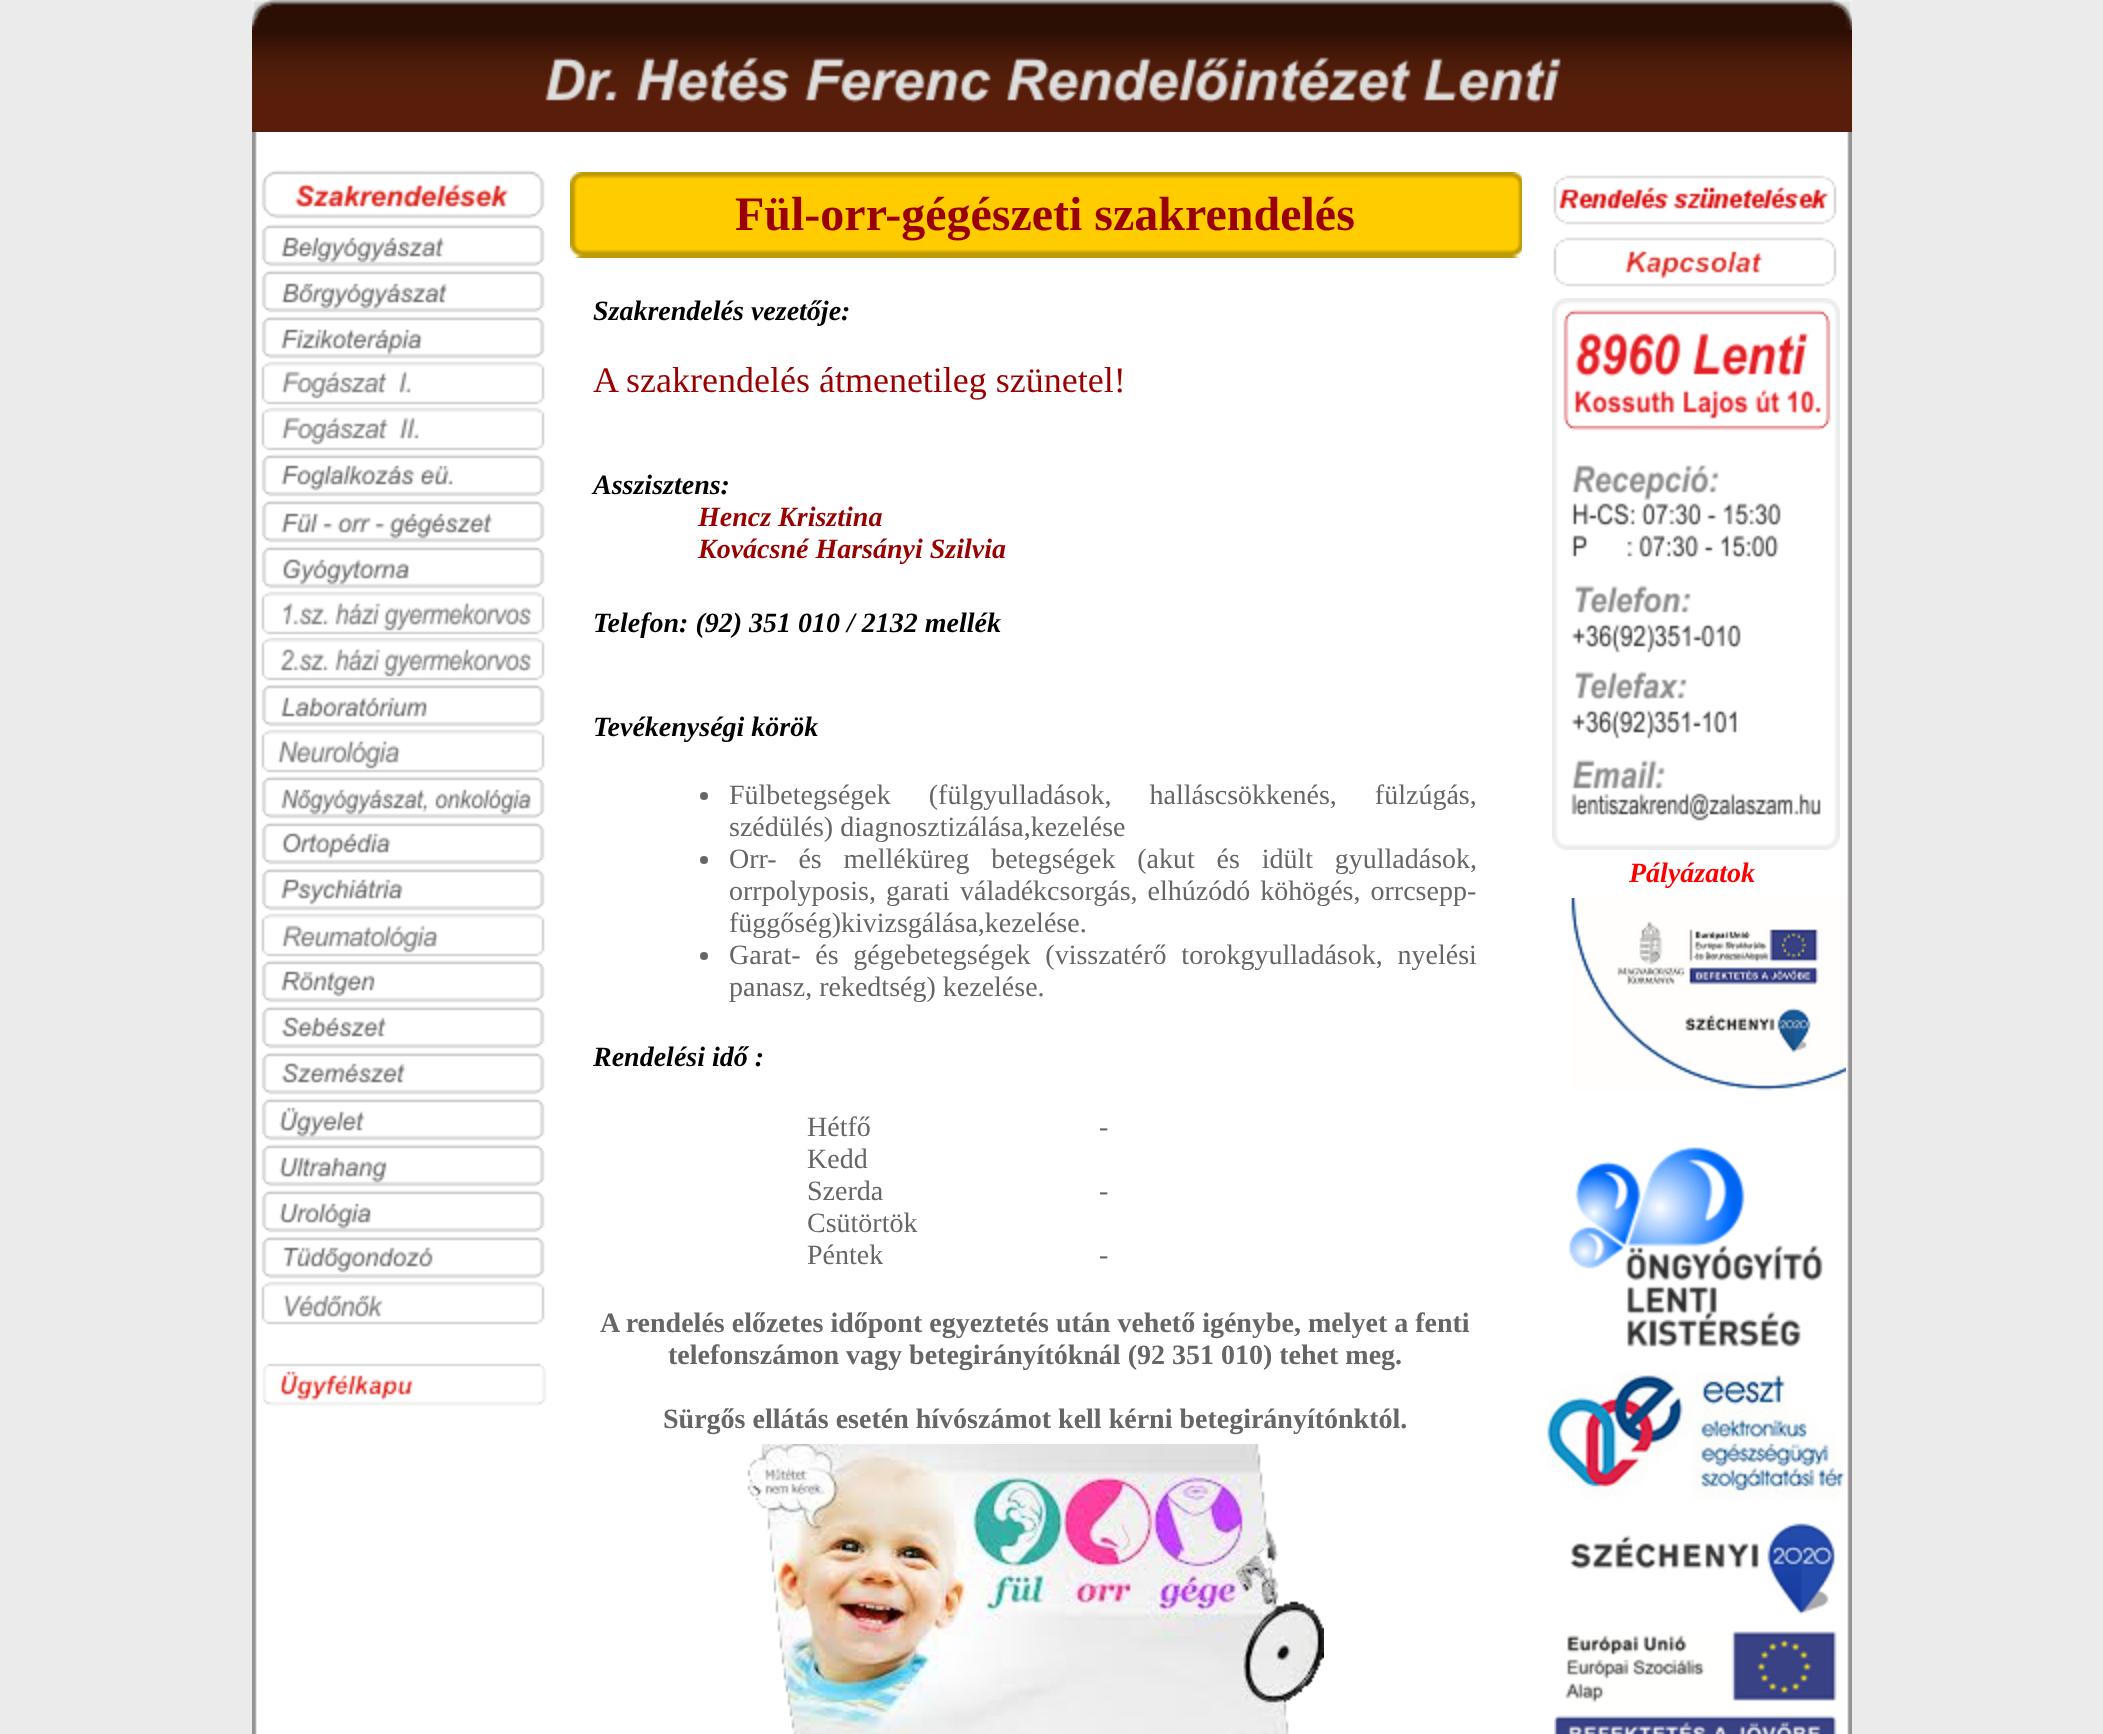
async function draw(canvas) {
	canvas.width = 2103;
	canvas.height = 1734;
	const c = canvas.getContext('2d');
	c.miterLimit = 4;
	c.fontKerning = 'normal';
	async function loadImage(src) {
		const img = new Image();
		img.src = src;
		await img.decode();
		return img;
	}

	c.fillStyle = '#ebebeb';
	c.fillRect(0, 0, 2103, 1734);
	c.drawImage(await loadImage('img1.png'), 252, 0, 1600, 30);
	c.drawImage(await loadImage('img2.png'), 252, 30, 1600, 102);
	c.drawImage(await loadImage('img3.png'), 545, 57, 1016, 46);
	c.drawImage(await loadImage('img4.png'), 252, 132, 1600, 1602);
	c.drawImage(await loadImage('img5.png'), 261, 170, 284, 49);
	c.drawImage(await loadImage('img6.png'), 261, 224, 284, 43);
	c.drawImage(await loadImage('img7.png'), 261, 270, 284, 43);
	c.drawImage(await loadImage('img8.png'), 261, 316, 284, 43);
	c.drawImage(await loadImage('img9.png'), 261, 361, 284, 44);
	c.drawImage(await loadImage('img10.png'), 261, 407, 284, 44);
	c.drawImage(await loadImage('img11.png'), 261, 454, 284, 43);
	c.drawImage(await loadImage('img12.png'), 261, 500, 284, 43);
	c.drawImage(await loadImage('img13.png'), 261, 546, 284, 43);
	c.drawImage(await loadImage('img14.png'), 261, 591, 284, 44);
	c.drawImage(await loadImage('img15.png'), 261, 637, 284, 44);
	c.drawImage(await loadImage('img16.png'), 261, 684, 284, 43);
	c.drawImage(await loadImage('img17.png'), 261, 729, 284, 44);
	c.drawImage(await loadImage('img18.png'), 261, 776, 284, 43);
	c.drawImage(await loadImage('img19.png'), 261, 822, 284, 43);
	c.drawImage(await loadImage('img20.png'), 261, 868, 284, 43);
	c.drawImage(await loadImage('img21.png'), 261, 913, 284, 44);
	c.drawImage(await loadImage('img22.png'), 261, 960, 284, 43);
	c.drawImage(await loadImage('img23.png'), 261, 1006, 284, 43);
	c.drawImage(await loadImage('img24.png'), 261, 1052, 284, 43);
	c.drawImage(await loadImage('img25.png'), 261, 1098, 284, 43);
	c.drawImage(await loadImage('img26.png'), 261, 1144, 284, 43);
	c.drawImage(await loadImage('img27.png'), 261, 1190, 284, 43);
	c.drawImage(await loadImage('img28.png'), 261, 1236, 284, 43);
	c.drawImage(await loadImage('img29.png'), 261, 1281, 284, 44);
	c.drawImage(await loadImage('img30.png'), 262, 1363, 285, 43);
	c.drawImage(await loadImage('img31.png'), 570, 172, 952, 86);
	c.font = 'bold 48px Liberation Serif';
	c.fillStyle = '#900';
	c.fillText('Fül-orr-gégészeti szakrendelés', 735, 230);
	c.font = 'italic bold 28px Liberation Serif';
	c.fillStyle = '#000';
	c.fillText('Szakrendelés vezetője:', 593, 320);
	c.font = '36px Liberation Serif';
	c.fillStyle = '#900';
	c.fillText('A szakrendelés átmenetileg szünetel!', 593, 392);
	c.font = 'italic bold 28px Liberation Serif';
	c.fillStyle = '#000';
	c.fillText('Asszisztens:', 593, 494);
	c.fillStyle = '#900';
	c.fillText('Hencz Krisztina', 698, 526);
	c.fillText('Kovácsné Harsányi Szilvia', 698, 558);
	c.fillStyle = '#000';
	c.fillText('Telefon: (92) 351 010 / 2132 mellék', 593, 632);
	c.fillText('Tevékenységi körök', 593, 736);
	c.fillStyle = '#666';
	c.beginPath();
	c.arc(704, 796, 4, 0, 2 * Math.PI);
	c.fill();
	c.wordSpacing = '31px';
	c.font = '28px Liberation Serif';
	c.fillText('Fülbetegségek (fülgyulladások, halláscsökkenés, fülzúgás,', 729, 804);
	c.wordSpacing = '0px';
	c.fillText('szédülés) diagnosztizálása,kezelése', 729, 836);
	c.beginPath();
	c.arc(704, 860, 4, 0, 2 * Math.PI);
	c.fill();
	c.wordSpacing = '14.75px';
	c.fillText('Orr- és melléküreg betegségek (akut és idült gyulladások,', 729, 868);
	c.wordSpacing = '3px';
	c.fillText('orrpolyposis, garati', 729, 900);
	c.fillText('váladékcsorgás, elhúzódó köhögés, orrcsepp-', 960, 900);
	c.wordSpacing = '0px';
	c.fillText('függőség)kivizsgálása,kezelése.', 729, 932);
	c.beginPath();
	c.arc(704, 956, 4, 0, 2 * Math.PI);
	c.fill();
	c.wordSpacing = '7.75px';
	c.fillText('Garat- és gégebetegségek (visszatérő torokgyulladások, nyelési', 729, 964);
	c.wordSpacing = '0px';
	c.fillText('panasz, rekedtség) kezelése.', 729, 996);
	c.font = 'italic bold 28px Liberation Serif';
	c.fillStyle = '#000';
	c.fillText('Rendelési idő :', 593, 1066);
	c.font = '28px Liberation Serif';
	c.fillStyle = '#666';
	for (const [text, x, y] of [
		['Hétfő', 807, 1136],
		['Kedd', 807, 1168],
		['Szerda', 807, 1200],
		['Csütörtök', 807, 1232],
		['Péntek', 807, 1264],
		['-', 1099, 1136],
		['-', 1099, 1200],
		['-', 1099, 1264],
	]) {
		c.fillText(text, x, y);
	}
	c.font = 'bold 28px Liberation Serif';
	for (const [text, x, y] of [
		['A rendelés előzetes időpont egyeztetés után vehető igénybe, melyet a fenti', 600, 1332],
		['telefonszámon vagy betegirányítóknál (92 351 010) tehet meg.', 668, 1364],
		['Sürgős ellátás esetén hívószámot kell kérni betegirányítónktól.', 663, 1428],
	]) {
		c.fillText(text, x, y);
	}
	c.drawImage(await loadImage('img32.png'), 747, 1444, 577, 290);
	c.drawImage(await loadImage('img33.png'), 1553, 175, 284, 50);
	c.drawImage(await loadImage('img34.png'), 1553, 237, 284, 50);
	c.drawImage(await loadImage('img35.png'), 1552, 298, 288, 552);
	c.font = 'italic bold 28px Liberation Serif';
	c.fillStyle = '#f00';
	c.fillText('Pályázatok', 1629, 882);
	c.drawImage(await loadImage('img36.png'), 1571, 898, 275, 193);
	c.drawImage(await loadImage('img37.png'), 1568, 1147, 255, 200);
	c.drawImage(await loadImage('img38.png'), 1546, 1370, 300, 132);
	c.drawImage(await loadImage('img39.png'), 1569, 1522, 268, 93);
	c.drawImage(await loadImage('img40.png'), 1554, 1631, 283, 103);
}

draw(document.querySelector('canvas'));
